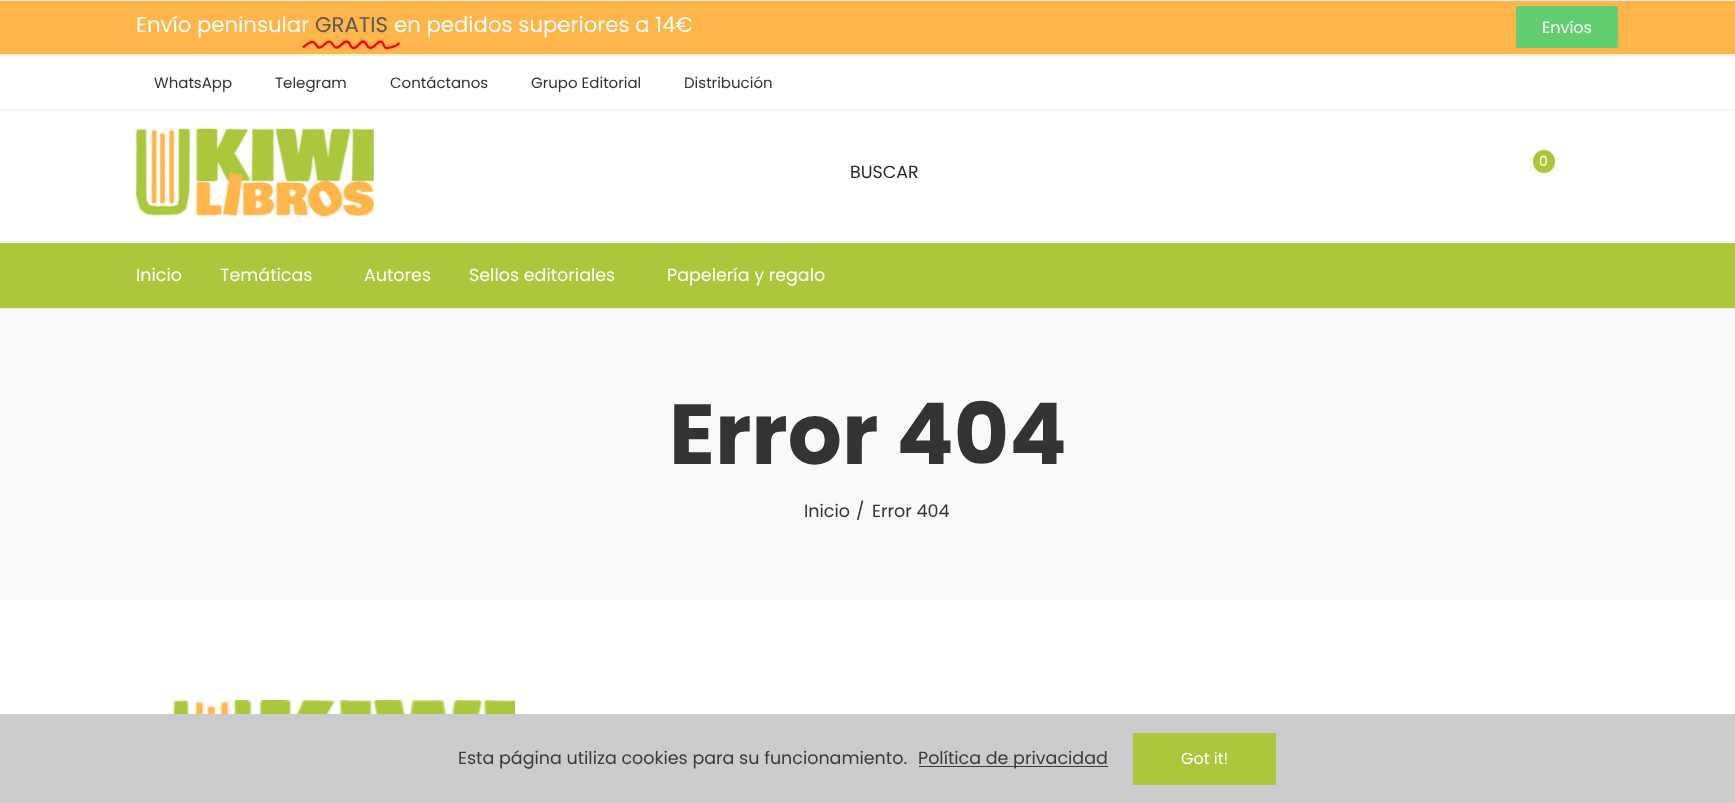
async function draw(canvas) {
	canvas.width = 1735;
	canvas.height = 803;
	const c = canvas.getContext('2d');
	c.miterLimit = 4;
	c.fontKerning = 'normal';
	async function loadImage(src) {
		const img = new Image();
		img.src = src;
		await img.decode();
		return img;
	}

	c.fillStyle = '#fff';
	c.fillRect(0, 0, 1735, 803);
	for (const [x, y, w, h, color] of [
		[0, 1, 1735, 53, '#feb549'],
		[0, 0, 1735, 1, '#eeeeef'],
		[0, 54, 1735, 2, '#eeeeef'],
	]) {
		c.fillStyle = color;
		c.fillRect(x, y, w, h);
	}
	c.font = '21.25px Poppins';
	c.fillStyle = '#fff';
	c.fillText('Envío peninsular', 136, 32);
	c.fillStyle = '#54595f';
	c.fillText('GRATIS', 315, 32);
	c.beginPath();
	c.moveTo(303, 47.5);
	c.bezierCurveTo(321, 31.5, 312.5, 56, 324.5, 44.5);
	c.bezierCurveTo(326, 43, 328, 40.5, 330.5, 42);
	c.bezierCurveTo(333, 43, 333.5, 48, 336.5, 47.5);
	c.bezierCurveTo(341, 47.5, 342.5, 41.5, 346.5, 41.5);
	c.bezierCurveTo(350.5, 41.5, 350, 48, 353.5, 48);
	c.bezierCurveTo(357.5, 48, 360, 41.5, 363, 41.5);
	c.bezierCurveTo(367, 41.5, 366.5, 48, 370.5, 48);
	c.bezierCurveTo(375, 48, 377, 41, 381, 41.5);
	c.bezierCurveTo(385.5, 42.5, 381, 51, 392, 47);
	c.bezierCurveTo(395, 46.5, 397.5, 45, 399.5, 43);
	c.strokeStyle = '#f00';
	c.lineWidth = 2.3;
	c.stroke();
	c.fillStyle = '#fff';
	c.fillText('en pedidos superiores a 14€', 394, 32);
	c.fillStyle = '#61ce70';
	c.beginPath();
	c.roundRect(1516, 6, 102, 42, 2.5);
	c.fill();
	c.font = '16px Poppins';
	c.fillStyle = '#fff';
	c.fillText('Envíos', 1542, 33);
	c.fillStyle = '#eeeeef';
	c.fillRect(0, 109, 1735, 1);
	c.font = '15px Poppins';
	c.fillStyle = '#333';
	for (const [text, x, y] of [
		['WhatsApp', 154, 88],
		['Telegram', 275, 88],
		['Contáctanos', 390, 88],
		['Grupo Editorial', 531, 88],
		['Distribución', 684, 88],
	]) {
		c.fillText(text, x, y);
	}
	c.fillStyle = '#e8e8e8';
	c.fillRect(0, 241, 1735, 1);
	c.drawImage(await loadImage('img1.png'), 136, 128, 238, 89);
	c.fillStyle = '#abc73b';
	c.beginPath();
	c.roundRect(1533, 150, 22, 23, 11);
	c.fill();
	c.font = '14px Poppins';
	c.fillStyle = '#fff';
	c.fillText('0', 1539, 166);
	c.font = '17.5px Poppins';
	c.fillStyle = '#282828';
	c.fillText('BUSCAR', 850, 178);
	c.fillStyle = '#abc73b';
	c.fillRect(0, 243, 1735, 65);
	c.fillStyle = '#e8e8e8';
	c.fillRect(0, 308, 1735, 1);
	c.fillStyle = '#fff';
	for (const [text, x, y] of [
		['Inicio', 136, 281],
		['Temáticas', 220, 281],
		['Autores', 364, 281],
		['Sellos editoriales', 469, 281],
		['Papelería y regalo', 667, 281],
	]) {
		c.fillText(text, x, y);
	}
	c.fillStyle = '#f9f9f9';
	c.fillRect(0, 309, 1735, 291);
	c.font = 'bold 85px Poppins';
	c.fillStyle = '#333';
	c.fillText('Error 404', 669, 464);
	c.font = '17.5px Poppins';
	for (const [text, x, y] of [
		['Inicio', 804, 517],
		['/', 856, 517],
		['Error 404', 872, 517],
	]) {
		c.fillText(text, x, y);
	}
	c.drawImage(await loadImage('img2.png'), 173, 700, 342, 14);
	c.fillStyle = '#ccc';
	c.fillRect(0, 714, 1735, 89);
	c.fillStyle = '#3b3b3b';
	c.fillText('Esta página utiliza cookies para su funcionamiento.', 458, 764);
	c.fillRect(919, 766, 189, 1);
	c.fillText('Política de privacidad', 918, 764);
	c.fillStyle = '#abc73b';
	c.fillRect(1133, 733, 143, 52);
	c.font = '16px Poppins';
	c.fillStyle = '#fff';
	c.fillText('Got it!', 1181, 764);
}

draw(document.querySelector('canvas'));
